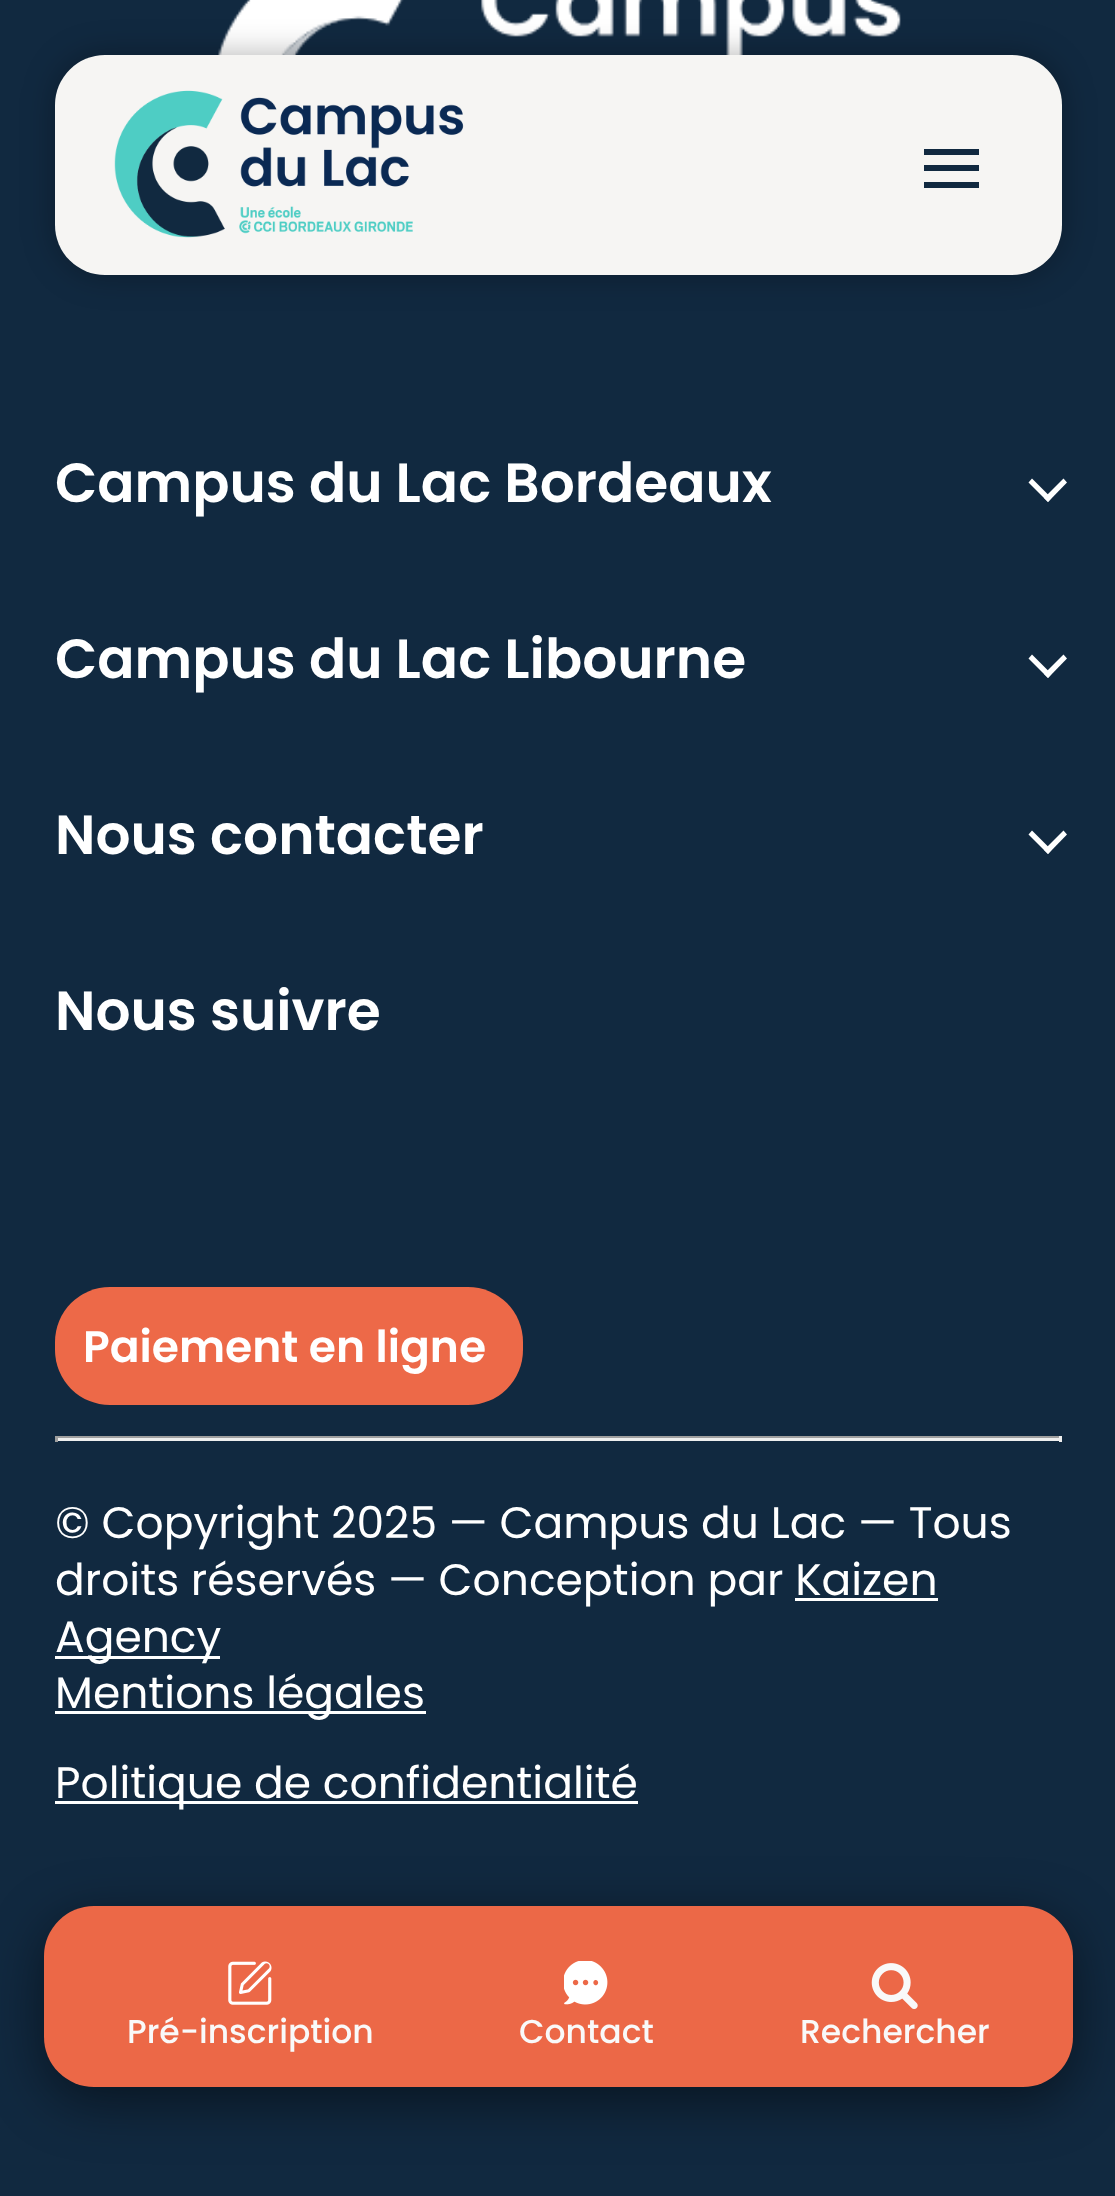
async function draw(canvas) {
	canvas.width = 1115;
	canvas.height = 2196;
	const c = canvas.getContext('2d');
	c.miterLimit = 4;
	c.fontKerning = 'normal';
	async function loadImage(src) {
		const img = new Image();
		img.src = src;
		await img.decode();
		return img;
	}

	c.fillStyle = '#112940';
	c.fillRect(0, 0, 1115, 2196);
	c.drawImage(await loadImage('img1.png'), 218, 0, 683, 55);
	c.font = '600 55px Poppins';
	c.fillStyle = '#fff';
	c.fillText('Campus du Lac Bordeaux', 55, 502);
	c.beginPath();
	c.moveTo(1048, 502);
	c.lineTo(1028.5, 482.5);
	c.lineTo(1032, 478.5);
	c.lineTo(1051.5, 498);
	c.closePath();
	c.fill();
	c.beginPath();
	c.moveTo(1048, 502);
	c.lineTo(1044, 498);
	c.lineTo(1063.5, 478.5);
	c.lineTo(1067, 482.5);
	c.closePath();
	c.fill();
	c.fillText('Campus du Lac Libourne', 55, 678);
	c.beginPath();
	c.moveTo(1048, 678);
	c.lineTo(1028.5, 658.5);
	c.lineTo(1032, 654.5);
	c.lineTo(1051.5, 674);
	c.closePath();
	c.fill();
	c.beginPath();
	c.moveTo(1048, 678);
	c.lineTo(1044, 674);
	c.lineTo(1063.5, 654.5);
	c.lineTo(1067, 658.5);
	c.closePath();
	c.fill();
	c.fillText('Nous contacter', 55, 854);
	c.beginPath();
	c.moveTo(1048, 854);
	c.lineTo(1028.5, 834.5);
	c.lineTo(1032, 830.5);
	c.lineTo(1051.5, 850);
	c.closePath();
	c.fill();
	c.beginPath();
	c.moveTo(1048, 854);
	c.lineTo(1044, 850);
	c.lineTo(1063.5, 830.5);
	c.lineTo(1067, 834.5);
	c.closePath();
	c.fill();
	c.fillText('Nous suivre', 55, 1030);
	c.fillStyle = '#ed6948';
	c.beginPath();
	c.roundRect(55, 1287, 468, 118, 55);
	c.fill();
	c.font = '600 44px Poppins';
	c.fillStyle = '#fff';
	c.fillText('Paiement en ligne', 83, 1362);
	for (const [x, y, w, h, color] of [
		[55, 1436, 1007, 2, '#9f9f9f'],
		[1059, 1436, 3, 6, '#eee'],
		[55, 1438, 1007, 3, '#eee'],
		[55, 1436, 3, 6, '#9f9f9f'],
	]) {
		c.fillStyle = color;
		c.fillRect(x, y, w, h);
	}
	c.font = '44px Poppins';
	c.fillStyle = '#fff';
	c.fillText('© Copyright 2025 — Campus du Lac — Tous', 55, 1538);
	c.fillText('droits réservés — Conception par Kaizen', 55, 1595);
	c.fillRect(55, 1656, 165, 3);
	c.fillText('Agency', 55, 1652);
	c.fillRect(795, 1598, 143, 3);
	c.fillRect(55, 1711, 371, 3);
	c.fillText('Mentions légales', 55, 1708);
	c.fillRect(55, 1801, 583, 3);
	c.fillText('Politique de confidentialité', 55, 1798);
	c.fillStyle = '#0000004d';
	c.filter = 'blur(16.5px)';
	c.beginPath();
	c.roundRect(55, 55, 1007, 220, 50);
	c.fill();
	c.filter = 'none';
	c.fillStyle = '#f6f5f3';
	c.beginPath();
	c.roundRect(55, 55, 1007, 220, 50);
	c.fill();
	c.drawImage(await loadImage('img2.png'), 114, 90, 350, 148);
	for (const [x, y, w, h, color] of [
		[924, 165, 55, 6, '#112940'],
		[924, 149, 55, 6, '#112940'],
		[924, 182, 55, 6, '#112940'],
	]) {
		c.fillStyle = color;
		c.fillRect(x, y, w, h);
	}
	c.fillStyle = '#00000080';
	c.filter = 'blur(27.5px)';
	c.beginPath();
	c.roundRect(44, 1920, 1029, 181, 50);
	c.fill();
	c.filter = 'none';
	c.fillStyle = '#ec6847';
	c.beginPath();
	c.roundRect(44, 1906, 1029, 181, 50);
	c.fill();
	c.drawImage(await loadImage('img3.png'), 228, 1961, 44, 44);
	c.font = '500 33px Poppins';
	c.fillStyle = '#f9f9f9';
	c.fillText('Pré-inscription', 127, 2043);
	c.drawImage(await loadImage('img4.png'), 564, 1961, 44, 44);
	c.fillText('Contact', 519, 2043);
	c.drawImage(await loadImage('img5.png'), 871, 1963, 47, 47);
	c.fillText('Rechercher', 800, 2043);
}

draw(document.querySelector('canvas'));
